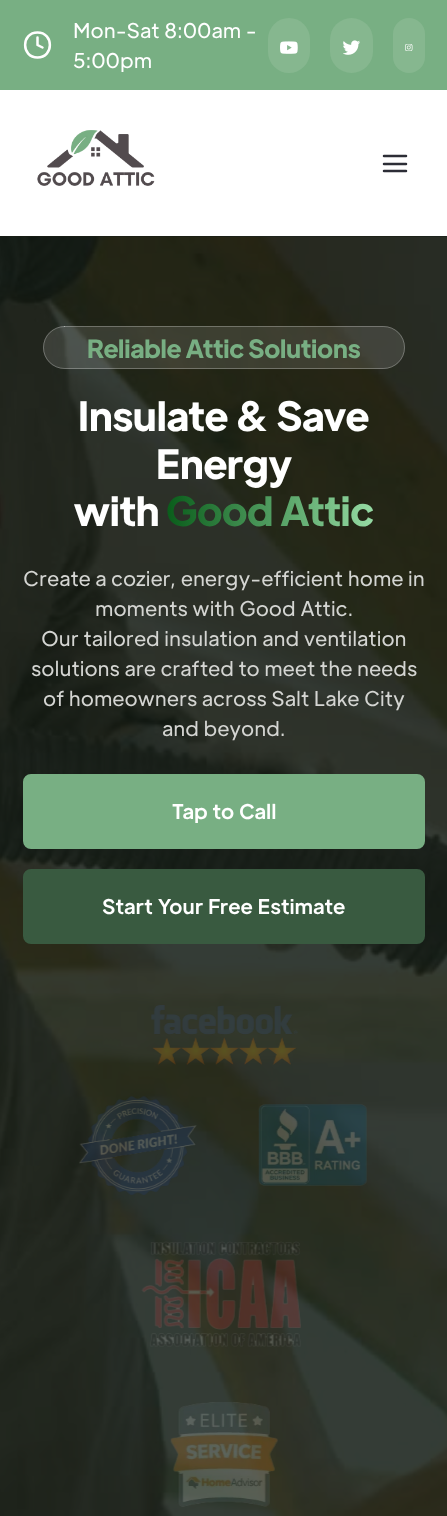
async function draw(canvas) {
	canvas.width = 447;
	canvas.height = 1516;
	const c = canvas.getContext('2d');
	c.miterLimit = 4;
	c.fontKerning = 'normal';
	async function loadImage(src) {
		const img = new Image();
		img.src = src;
		await img.decode();
		return img;
	}
	let gradient;

	c.fillStyle = '#fff';
	c.fillRect(0, 0, 447, 1516);
	c.fillStyle = '#78af83';
	c.fillRect(0, 0, 447, 90);
	c.beginPath();
	c.moveTo(37.5, 57.5);
	c.bezierCurveTo(54, 57.5, 54, 32.5, 37.5, 32.5);
	c.bezierCurveTo(21, 32.5, 21, 57.5, 37.5, 57.5);
	c.closePath();
	c.moveTo(37.5, 37.5);
	c.lineTo(37.5, 45);
	c.lineTo(42.5, 47.5);
	c.strokeStyle = '#fff';
	c.lineWidth = 2.5;
	c.lineCap = 'round';
	c.lineJoin = 'round';
	c.stroke();
	c.font = '20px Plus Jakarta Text';
	c.fillStyle = '#fff';
	c.fillText('Mon-Sat 8:00am -', 73, 38);
	c.fillText('5:00pm', 73, 68);
	c.fillStyle = '#86b78f';
	c.beginPath();
	c.roundRect(268, 18, 42, 55, 21);
	c.fill();
	c.drawImage(await loadImage('img1.png'), 280, 41, 18, 13);
	c.beginPath();
	c.roundRect(330, 18, 43, 55, 21.5);
	c.fill();
	c.drawImage(await loadImage('img2.png'), 343, 40, 17, 15);
	c.beginPath();
	c.roundRect(393, 18, 32, 55, 16);
	c.fill();
	c.drawImage(await loadImage('img3.png'), 405, 44, 8, 7);
	c.drawImage(await loadImage('img4.png'), 37, 130, 118, 56);
	c.beginPath();
	c.moveTo(384, 164);
	c.lineTo(406, 164);
	c.moveTo(384, 156);
	c.lineTo(406, 156);
	c.moveTo(384, 171);
	c.lineTo(406, 171);
	c.strokeStyle = '#2c2d36';
	c.stroke();
	c.fillStyle = '#111a13';
	c.fillRect(0, 236, 447, 1280);
	c.drawImage(await loadImage('img5.png'), 0, 236, 447, 1280);
	c.fillStyle = '#ffffff1f';
	c.beginPath();
	c.roundRect(43, 326, 362, 43, 21.5);
	c.fill();
	c.beginPath();
	c.roundRect(43.5, 326.5, 361, 42, 21);
	c.strokeStyle = '#ffffff45';
	c.lineWidth = 1;
	c.lineJoin = 'miter';
	c.stroke();
	c.font = 'bold 25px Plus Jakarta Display';
	c.fillStyle = '#78af83';
	c.fillText('Reliable Attic Solutions', 87, 358);
	c.font = 'bold 40px Plus Jakarta Display';
	c.fillStyle = '#fff';
	for (const [text, x, y] of [
		['Insulate & Save', 78, 431],
		['Energy', 156, 479],
		['with', 74, 526],
	]) {
		c.fillText(text, x, y);
	}
	gradient = c.createLinearGradient(166, 509, 374, 509);
	gradient.addColorStop(0, '#095c1a');
	gradient.addColorStop(1, '#96dba4');
	c.fillStyle = gradient;
	c.fillText('Good Attic', 166, 526);
	c.font = '20px Plus Jakarta Text';
	c.fillStyle = '#d4d5d2';
	for (const [text, x, y] of [
		['Create a cozier, energy-efficient home in', 23, 586],
		['moments with Good Attic.', 95, 616],
		['Our tailored insulation and ventilation', 41, 646],
		['solutions are crafted to meet the needs', 31, 676],
		['of homeowners across Salt Lake City', 43, 706],
		['and beyond.', 162, 736],
	]) {
		c.fillText(text, x, y);
	}
	c.fillStyle = '#78af83';
	c.beginPath();
	c.roundRect(24.5, 775.5, 399, 72, 6.5);
	c.fill();
	c.strokeStyle = '#78af83';
	c.lineWidth = 3;
	c.stroke();
	c.font = 'bold 20px Plus Jakarta Text';
	c.fillStyle = '#fff';
	c.fillText('Tap to Call', 172, 819);
	c.fillStyle = '#395a40';
	c.beginPath();
	c.roundRect(24.5, 870.5, 399, 72, 6.5);
	c.fill();
	c.strokeStyle = '#395a40';
	c.stroke();
	c.fillStyle = '#fff';
	c.fillText('Start Your Free Estimate', 102, 914);
	c.drawImage(await loadImage('img6.png'), 151, 1005, 147, 60);
	c.drawImage(await loadImage('img7.png'), 79, 1096, 118, 99);
	c.drawImage(await loadImage('img8.png'), 258, 1104, 109, 82);
	c.drawImage(await loadImage('img9.png'), 141, 1241, 160, 106);
	c.drawImage(await loadImage('img10.png'), 170, 1402, 108, 105);
}

draw(document.querySelector('canvas'));
